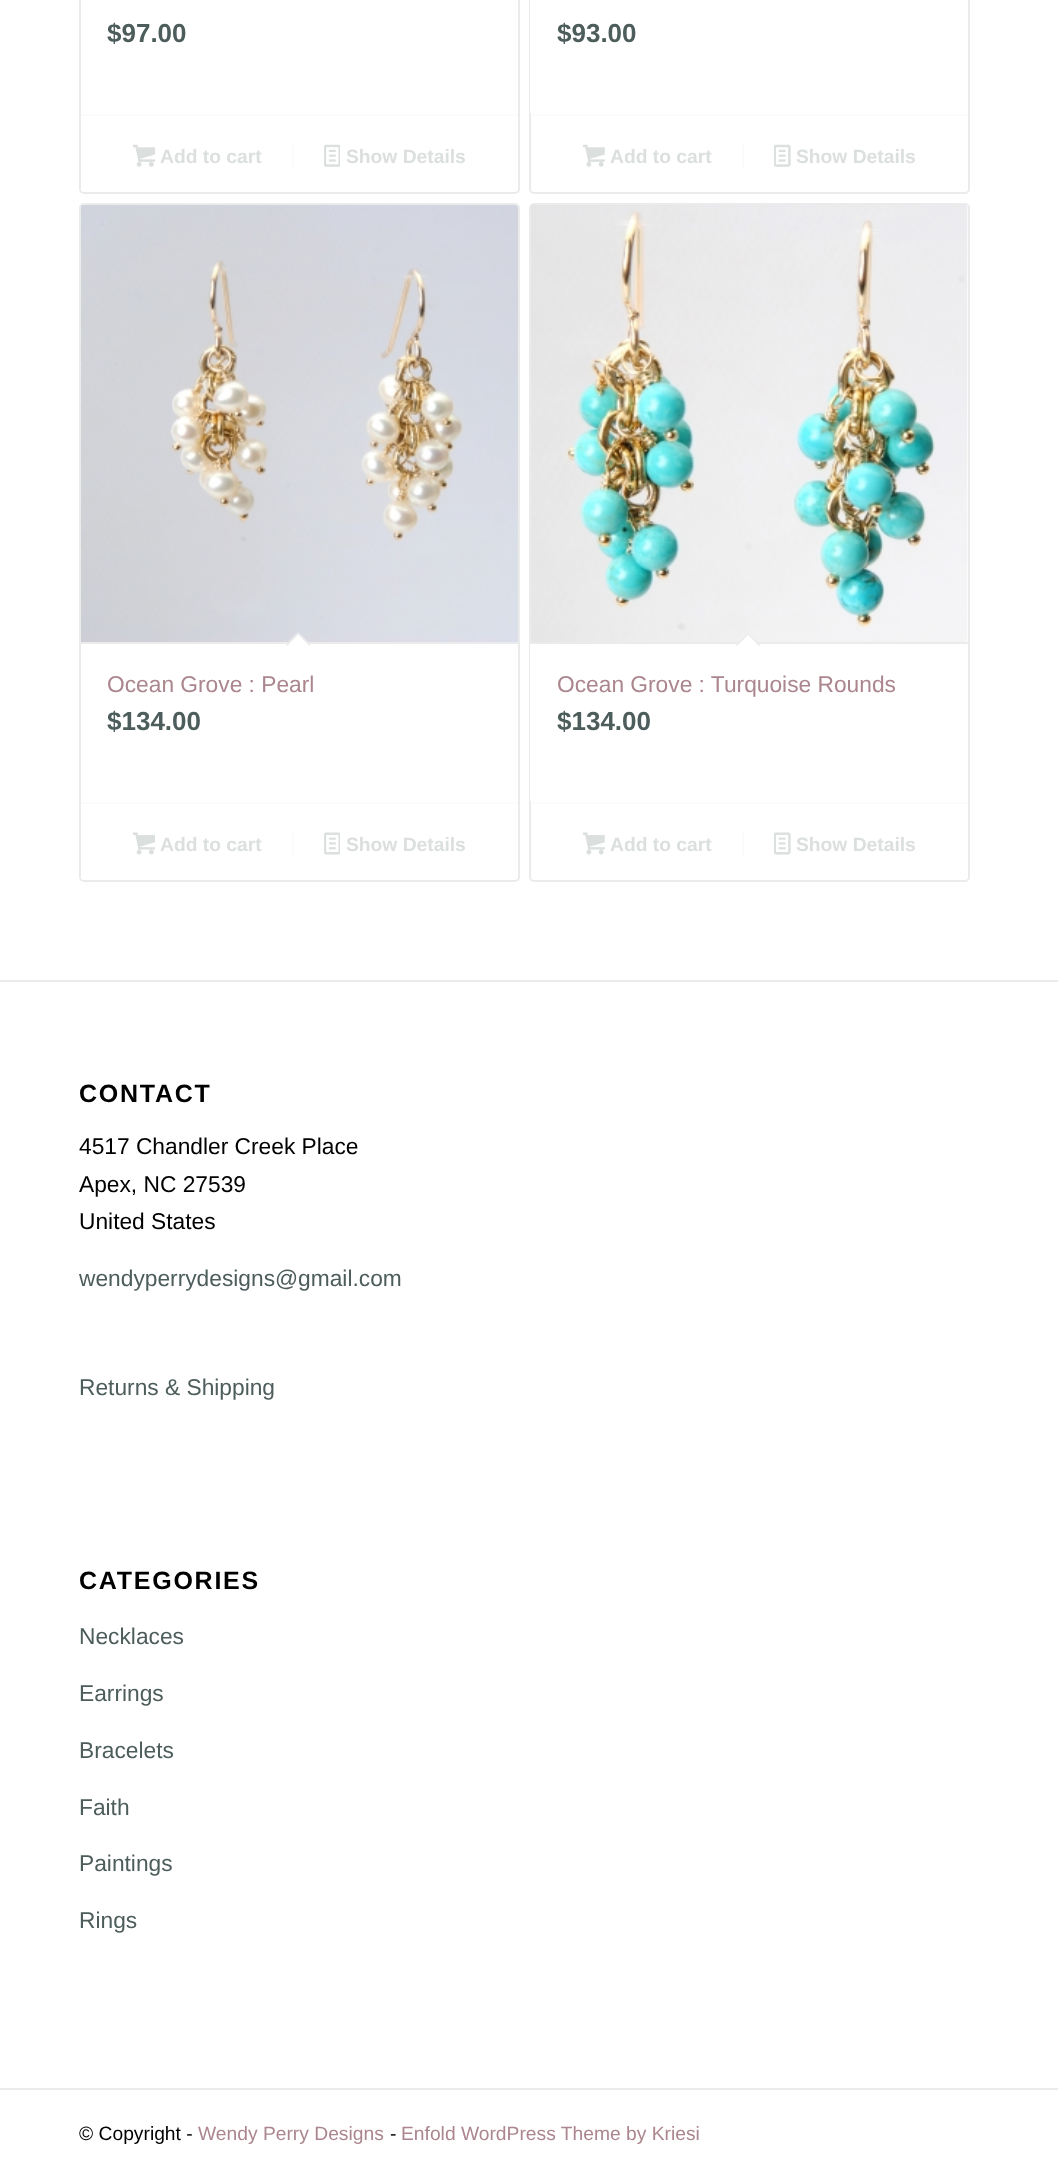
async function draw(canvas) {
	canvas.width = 1058;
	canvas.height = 2179;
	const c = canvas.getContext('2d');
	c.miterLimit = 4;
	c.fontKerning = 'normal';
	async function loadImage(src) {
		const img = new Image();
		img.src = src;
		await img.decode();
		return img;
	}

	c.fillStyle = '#fff';
	c.fillRect(0, 0, 1058, 2179);
	c.beginPath();
	c.roundRect(80, -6, 439, 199, 4);
	c.strokeStyle = '#ebebeb';
	c.lineWidth = 2;
	c.stroke();
	c.font = 'bold 26px Liberation Sans';
	c.fillStyle = '#4d5d5c';
	c.fillText('$97.00', 107, 42);
	c.fillStyle = '#fbfbfb';
	c.fillRect(81, 114, 437, 2);
	c.drawImage(await loadImage('img1.png'), 133, 144, 22, 23);
	c.font = 'bold 19.25px Liberation Sans';
	c.fillStyle = '#dbdfde';
	c.fillText('Add to cart', 160, 163);
	c.fillStyle = '#fbfbfb';
	c.fillRect(292, 144, 2, 24);
	c.drawImage(await loadImage('img2.png'), 324, 144, 16, 23);
	c.fillStyle = '#dbdfde';
	c.fillText('Show Details', 346, 163);
	c.beginPath();
	c.roundRect(530, -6, 439, 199, 4);
	c.stroke();
	c.fillStyle = '#fff';
	c.beginPath();
	c.moveTo(530, -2);
	c.lineTo(968, -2);
	c.lineTo(968, 112);
	c.bezierCurveTo(968, 113, 967, 114, 966, 114);
	c.lineTo(532, 114);
	c.bezierCurveTo(531, 114, 530, 113, 530, 112);
	c.closePath();
	c.fill();
	c.font = 'bold 26px Liberation Sans';
	c.fillStyle = '#4d5d5c';
	c.fillText('$93.00', 557, 42);
	c.fillStyle = '#ebebeb33';
	c.fillRect(530, 114, 438, 2);
	c.drawImage(await loadImage('img3.png'), 583, 144, 22, 23);
	c.font = 'bold 19.25px Liberation Sans';
	c.fillStyle = '#dbdfde';
	c.fillText('Add to cart', 610, 163);
	c.fillStyle = '#fbfbfb';
	c.fillRect(742, 144, 2, 24);
	c.drawImage(await loadImage('img4.png'), 774, 144, 17, 23);
	c.fillStyle = '#dbdfde';
	c.fillText('Show Details', 796, 163);
	c.beginPath();
	c.roundRect(80, 204, 439, 677, 4);
	c.stroke();
	c.drawImage(await loadImage('img5.png'), 81, 205, 437, 437);
	c.fillStyle = '#ebebeb';
	c.fillRect(81, 642, 437, 2);
	c.fillStyle = '#fff';
	c.beginPath();
	c.moveTo(298, 632.5);
	c.lineTo(310.5, 644.5);
	c.lineTo(298, 657);
	c.lineTo(286, 644.5);
	c.closePath();
	c.fill();
	c.fillStyle = '#ebebeb';
	c.beginPath();
	c.moveTo(298, 632.5);
	c.lineTo(310.5, 644.5);
	c.lineTo(309.5, 646);
	c.lineTo(297, 633.5);
	c.closePath();
	c.fill();
	c.beginPath();
	c.moveTo(298, 632.5);
	c.lineTo(299.5, 633.5);
	c.lineTo(287, 646);
	c.lineTo(286, 644.5);
	c.closePath();
	c.fill();
	c.font = '22.75px Liberation Sans';
	c.fillStyle = '#ab868e';
	c.fillText('Ocean Grove : Pearl', 107, 692);
	c.font = 'bold 26px Liberation Sans';
	c.fillStyle = '#4d5d5c';
	c.fillText('$134.00', 107, 730);
	c.fillStyle = '#fbfbfb';
	c.fillRect(81, 802, 437, 2);
	c.drawImage(await loadImage('img6.png'), 133, 832, 22, 23);
	c.font = 'bold 19.25px Liberation Sans';
	c.fillStyle = '#dbdfde';
	c.fillText('Add to cart', 160, 851);
	c.fillStyle = '#fbfbfb';
	c.fillRect(292, 831, 2, 25);
	c.drawImage(await loadImage('img7.png'), 324, 832, 16, 23);
	c.fillStyle = '#dbdfde';
	c.fillText('Show Details', 346, 851);
	c.beginPath();
	c.roundRect(530, 204, 439, 677, 4);
	c.stroke();
	c.drawImage(await loadImage('img8.png'), 531, 205, 437, 437);
	c.fillStyle = '#fff';
	c.beginPath();
	c.roundRect(530, 642, 438, 160, [0, 0, 2, 2]);
	c.fill();
	c.fillStyle = '#ebebeb';
	c.fillRect(530, 642, 438, 2);
	c.fillStyle = '#fff';
	c.beginPath();
	c.moveTo(748, 632.5);
	c.lineTo(760.5, 644.5);
	c.lineTo(748, 657);
	c.lineTo(735.5, 644.5);
	c.closePath();
	c.fill();
	c.fillStyle = '#ebebeb';
	c.beginPath();
	c.moveTo(748, 632.5);
	c.lineTo(760.5, 644.5);
	c.lineTo(759, 646);
	c.lineTo(747, 633.5);
	c.closePath();
	c.fill();
	c.beginPath();
	c.moveTo(748, 632.5);
	c.lineTo(749.5, 633.5);
	c.lineTo(737, 646);
	c.lineTo(735.5, 644.5);
	c.closePath();
	c.fill();
	c.font = '22.75px Liberation Sans';
	c.fillStyle = '#ab868e';
	c.fillText('Ocean Grove : Turquoise Rounds', 557, 692);
	c.font = 'bold 26px Liberation Sans';
	c.fillStyle = '#4d5d5c';
	c.fillText('$134.00', 557, 730);
	c.fillStyle = '#ebebeb33';
	c.fillRect(530, 802, 438, 2);
	c.drawImage(await loadImage('img9.png'), 583, 832, 22, 23);
	c.font = 'bold 19.25px Liberation Sans';
	c.fillStyle = '#dbdfde';
	c.fillText('Add to cart', 610, 851);
	c.fillStyle = '#fbfbfb';
	c.fillRect(742, 831, 2, 25);
	c.drawImage(await loadImage('img10.png'), 774, 832, 17, 23);
	c.fillStyle = '#dbdfde';
	c.fillText('Show Details', 796, 851);
	c.fillStyle = '#ebebeb';
	c.fillRect(0, 980, 1058, 2);
	c.letterSpacing = '1.75px';
	c.font = 'bold 25px Liberation Sans';
	c.fillStyle = '#000';
	c.fillText('CONTACT', 79, 1102);
	c.letterSpacing = '0px';
	c.font = '22.75px Liberation Sans';
	for (const [text, x, y] of [
		['4517 Chandler Creek Place', 79, 1154],
		['Apex, NC 27539', 79, 1192],
		['United States', 79, 1229],
	]) {
		c.fillText(text, x, y);
	}
	c.fillStyle = '#4d5d5c';
	c.fillText('wendyperrydesigns@gmail.com', 79, 1286);
	c.fillText('Returns & Shipping', 79, 1395);
	c.letterSpacing = '1.75px';
	c.font = 'bold 25px Liberation Sans';
	c.fillStyle = '#000';
	c.fillText('CATEGORIES', 79, 1589);
	c.letterSpacing = '0px';
	c.font = '22.75px Liberation Sans';
	c.fillStyle = '#4d5d5c';
	for (const [text, x, y] of [
		['Necklaces', 79, 1644],
		['Earrings', 79, 1701],
		['Bracelets', 79, 1758],
		['Faith', 79, 1815],
		['Paintings', 79, 1871],
		['Rings', 79, 1928],
	]) {
		c.fillText(text, x, y);
	}
	c.fillStyle = '#ebebeb';
	c.fillRect(0, 2088, 1058, 2);
	c.font = '19.25px Liberation Sans';
	c.fillStyle = '#000';
	c.fillText('© Copyright -', 79, 2140);
	c.fillStyle = '#ab868e';
	c.fillText('Wendy Perry Designs', 198, 2140);
	c.fillStyle = '#000';
	c.fillText('-', 390, 2140);
	c.fillStyle = '#ab868e';
	c.fillText('Enfold WordPress Theme by Kriesi', 401, 2140);
}

draw(document.querySelector('canvas'));
